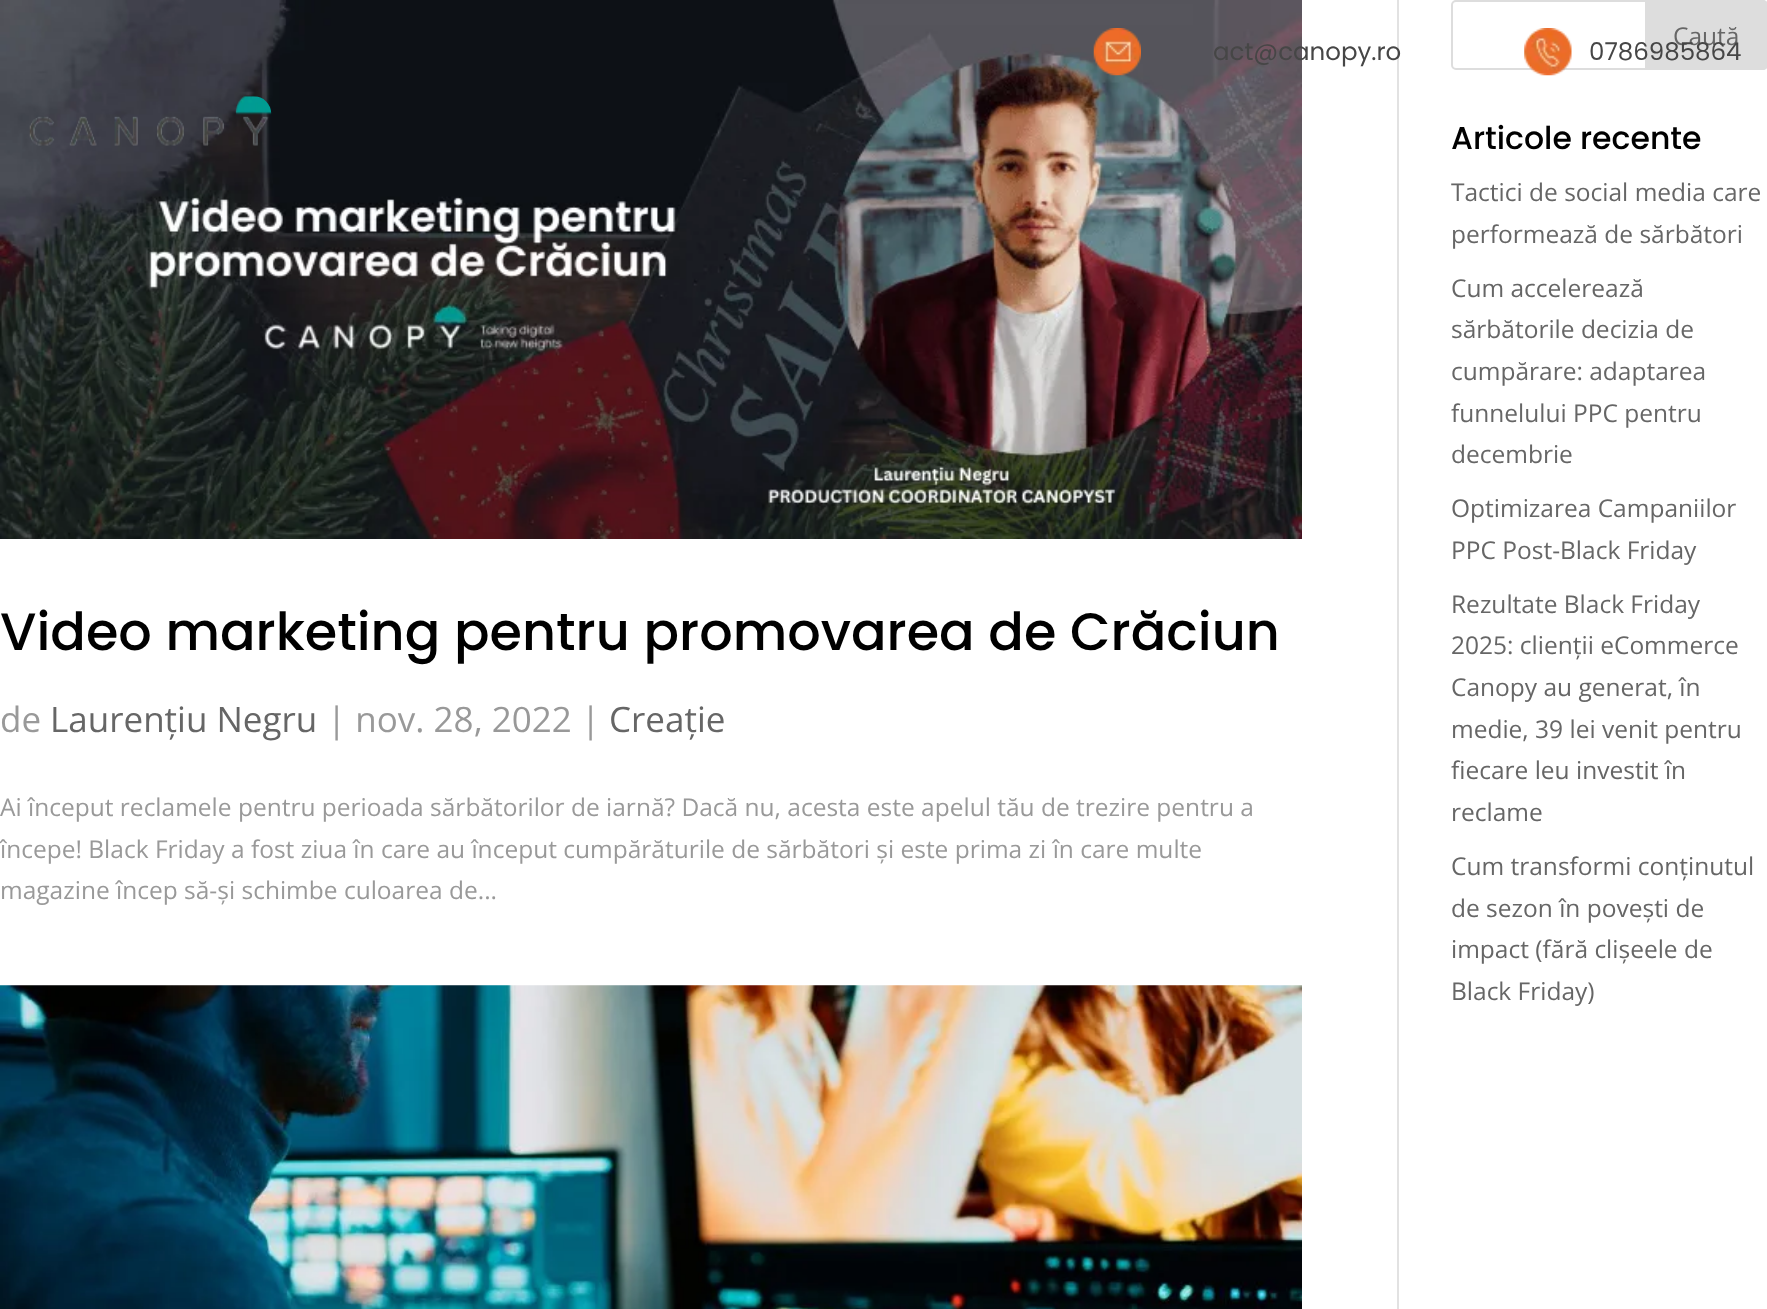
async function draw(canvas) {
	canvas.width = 1767;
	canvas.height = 1309;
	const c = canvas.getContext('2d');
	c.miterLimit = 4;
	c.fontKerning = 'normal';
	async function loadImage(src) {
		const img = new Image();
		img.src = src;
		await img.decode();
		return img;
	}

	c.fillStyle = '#fff';
	c.fillRect(0, 0, 1767, 1309);
	c.fillStyle = '#e2e2e2';
	c.fillRect(1397, 0, 2, 1309);
	c.drawImage(await loadImage('img1.png'), 0, 0, 1302, 539);
	c.font = '500 52.5px Poppins';
	c.fillStyle = '#000';
	c.fillText('Video marketing pentru promovarea de Crăciun', 0, 650);
	c.font = '35px Open Sans';
	c.fillStyle = '#999';
	c.fillText('de', 0, 732);
	c.fillStyle = '#666';
	c.fillText('Laurențiu Negru', 50, 732);
	c.fillStyle = '#999';
	c.fillText('| nov. 28, 2022 |', 327, 732);
	c.fillStyle = '#666';
	c.fillText('Creație', 609, 732);
	c.font = '24.5px Open Sans';
	c.fillStyle = '#999';
	for (const [text, x, y] of [
		['Ai început reclamele pentru perioada sărbătorilor de iarnă? Dacă nu, acesta este apelul tău de trezire pentru a', 0, 816],
		['începe! Black Friday a fost ziua în care au început cumpărăturile de sărbători și este prima zi în care multe', 0, 858],
		['magazine încep să-și schimbe culoarea de...', 0, 899],
	]) {
		c.fillText(text, x, y);
	}
	c.drawImage(await loadImage('img2.png'), 0, 985, 1302, 324);
	c.beginPath();
	c.roundRect(1452, 1, 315, 68, 4);
	c.strokeStyle = '#ddd';
	c.lineWidth = 2;
	c.stroke();
	c.fillStyle = '#ddd';
	c.beginPath();
	c.moveTo(1646, 1);
	c.lineTo(1763, 1);
	c.bezierCurveTo(1765, 1, 1767, 3, 1767, 5);
	c.lineTo(1767, 65);
	c.bezierCurveTo(1767, 67, 1765, 69, 1763, 69);
	c.lineTo(1646, 69);
	c.closePath();
	c.fill();
	c.stroke();
	c.fillStyle = '#666';
	c.fillText('Caută', 1673, 45);
	c.font = '500 31.5px Poppins';
	c.fillStyle = '#000';
	c.fillText('Articole recente', 1451, 149);
	c.font = '24.5px Open Sans';
	c.fillStyle = '#666';
	for (const [text, x, y] of [
		['Tactici de social media care', 1451, 201],
		['performează de sărbători', 1451, 243],
		['Cum accelerează', 1451, 297],
		['sărbătorile decizia de', 1451, 338],
		['cumpărare: adaptarea', 1451, 380],
		['funnelului PPC pentru', 1451, 422],
		['decembrie', 1451, 463],
		['Optimizarea Campaniilor', 1451, 517],
		['PPC Post-Black Friday', 1451, 559],
		['Rezultate Black Friday', 1451, 613],
		['2025: clienții eCommerce', 1451, 654],
		['Canopy au generat, în', 1451, 696],
		['medie, 39 lei venit pentru', 1451, 738],
		['fiecare leu investit în', 1451, 779],
		['reclame', 1451, 821],
		['Cum transformi conținutul', 1451, 875],
		['de sezon în povești de', 1451, 917],
		['impact (fără clișeele de', 1451, 958],
		['Black Friday)', 1451, 1000],
	]) {
		c.fillText(text, x, y);
	}
	c.drawImage(await loadImage('img3.png'), 1093, 28, 48, 48);
	c.font = '24.5px Poppins';
	c.fillStyle = '#464646';
	c.fillText('act@canopy.ro', 1213, 60);
	c.drawImage(await loadImage('img4.png'), 1524, 28, 48, 48);
	c.fillText('0786985864', 1589, 60);
	c.drawImage(await loadImage('img5.png'), 29, 96, 243, 50);
}

draw(document.querySelector('canvas'));
